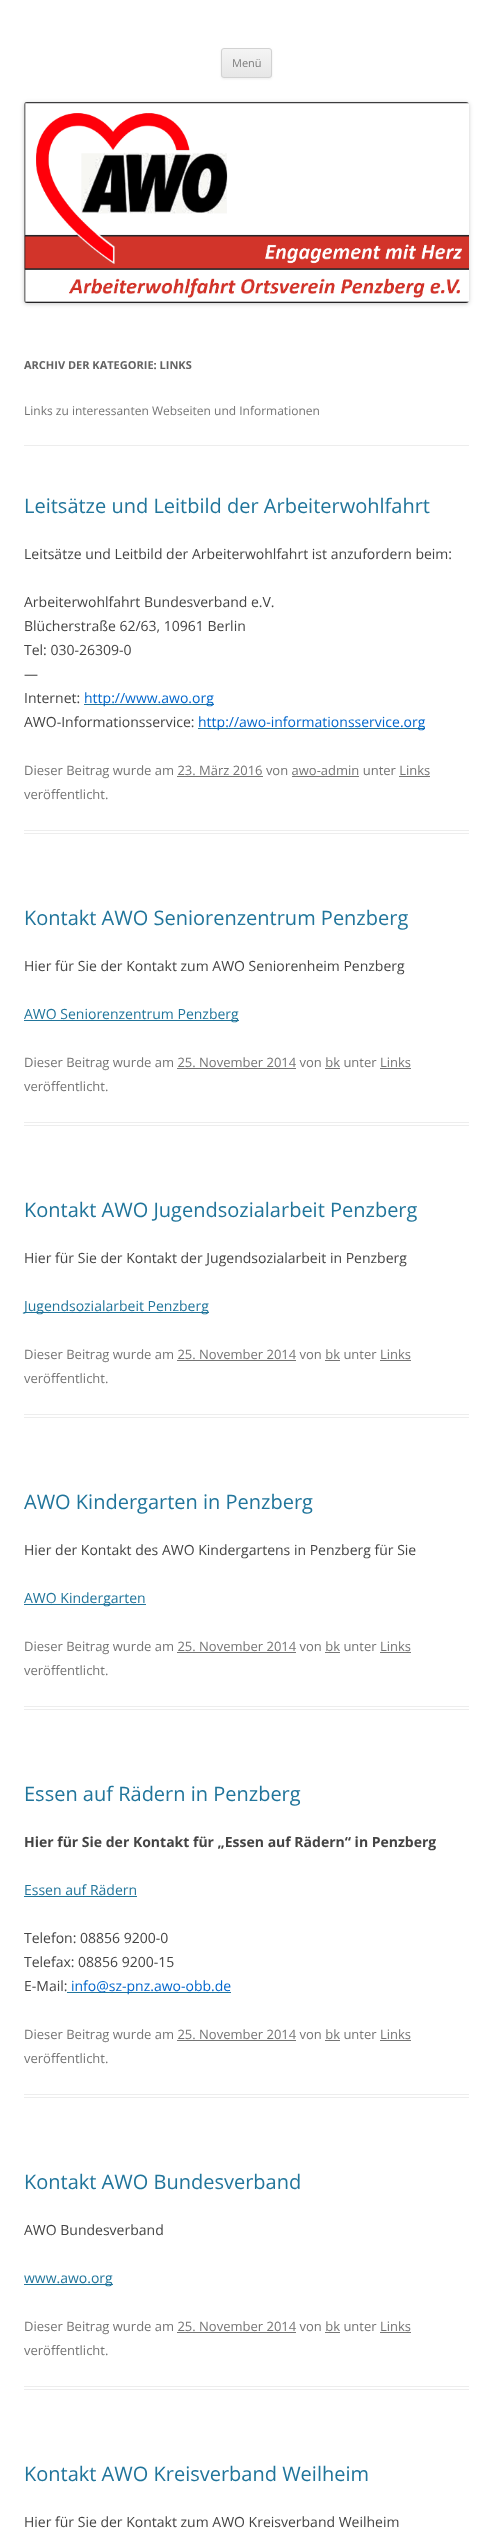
async function draw(canvas) {
	canvas.width = 493;
	canvas.height = 2542;
	const c = canvas.getContext('2d');
	c.miterLimit = 4;
	c.fontKerning = 'normal';
	async function loadImage(src) {
		const img = new Image();
		img.src = src;
		await img.decode();
		return img;
	}
	let gradient;

	c.fillStyle = '#fff';
	c.fillRect(0, 0, 493, 2542);
	c.fillStyle = '#4040401a';
	c.filter = 'blur(1px)';
	c.beginPath();
	c.roundRect(221, 49, 51, 30, 3);
	c.fill();
	c.filter = 'none';
	c.save();
	c.beginPath();
	c.roundRect(221, 48, 51, 30, 3);
	c.clip();
	gradient = c.createLinearGradient(247, 49, 247, 77);
	gradient.addColorStop(0, '#f4f4f4');
	gradient.addColorStop(1, '#e6e6e6');
	c.fillStyle = gradient;
	c.fillRect(221, 49, 51, 28);
	c.restore();
	c.beginPath();
	c.roundRect(221.5, 48.5, 50, 29, 2.5);
	c.strokeStyle = '#d2d2d2';
	c.stroke();
	c.font = '11px Open Sans';
	c.fillStyle = '#7c7c7c';
	c.fillText('Menü', 232, 67);
	c.save();
	c.beginPath();
	c.moveTo(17, 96);
	c.lineTo(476, 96);
	c.lineTo(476, 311);
	c.lineTo(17, 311);
	c.closePath();
	c.moveTo(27, 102);
	c.lineTo(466, 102);
	c.bezierCurveTo(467.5, 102, 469, 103.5, 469, 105);
	c.lineTo(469, 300);
	c.bezierCurveTo(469, 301.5, 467.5, 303, 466, 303);
	c.lineTo(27, 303);
	c.bezierCurveTo(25.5, 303, 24, 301.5, 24, 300);
	c.lineTo(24, 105);
	c.bezierCurveTo(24, 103.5, 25.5, 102, 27, 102);
	c.closePath();
	c.clip('evenodd');
	c.fillStyle = '#00000033';
	c.filter = 'blur(2px)';
	c.beginPath();
	c.roundRect(24, 103, 445, 201, 3);
	c.fill();
	c.filter = 'none';
	c.restore();
	c.drawImage(await loadImage('img1.png'), 24, 102, 445, 201);
	c.fillStyle = '#ededed';
	c.fillRect(24, 445, 445, 1);
	c.font = 'bold 11px Open Sans';
	c.fillStyle = '#636363';
	c.fillText('ARCHIV DER KATEGORIE: LINKS', 24, 369);
	c.font = '12px Open Sans';
	c.fillStyle = '#757575';
	c.fillText('Links zu interessanten Webseiten und Informationen', 24, 415);
	c.fillStyle = '#ededed';
	c.fillRect(24, 830, 445, 1);
	c.fillRect(24, 833, 445, 1);
	c.font = '20px Open Sans';
	c.fillStyle = '#21759b';
	c.fillText('Leitsätze und Leitbild der Arbeiterwohlfahrt', 24, 513);
	c.font = '14px Open Sans';
	c.fillStyle = '#444';
	for (const [text, x, y] of [
		['Leitsätze und Leitbild der Arbeiterwohlfahrt ist anzufordern beim:', 24, 559],
		['Arbeiterwohlfahrt Bundesverband e.V.', 24, 607],
		['Blücherstraße 62/63, 10961 Berlin', 24, 631],
		['Tel: 030-26309-0', 24, 655],
		['—', 24, 679],
		['Internet:', 24, 703],
	]) {
		c.fillText(text, x, y);
	}
	c.fillStyle = '#21759b';
	c.fillRect(84, 704, 130, 1);
	c.fillStyle = '#06c';
	c.fillText('http://www.awo.org', 84, 703);
	c.fillStyle = '#444';
	c.fillText('AWO-Informationsservice:', 24, 727);
	c.fillStyle = '#21759b';
	c.fillRect(198, 728, 227, 1);
	c.fillStyle = '#06c';
	c.fillText('http://awo-informationsservice.org', 198, 727);
	c.font = '13px Open Sans';
	c.fillStyle = '#757575';
	c.fillText('Dieser Beitrag wurde am 23. März 2016 von awo-admin unter Links', 24, 775);
	for (const [x, y, w, h, color] of [
		[177, 776, 86, 1, '#757575'],
		[292, 776, 67, 1, '#757575'],
		[399, 776, 31, 1, '#757575'],
	]) {
		c.fillStyle = color;
		c.fillRect(x, y, w, h);
	}
	c.fillText('veröffentlicht.', 24, 799);
	c.fillStyle = '#ededed';
	c.fillRect(24, 1122, 445, 1);
	c.fillRect(24, 1125, 445, 1);
	c.font = '20px Open Sans';
	c.fillStyle = '#21759b';
	c.fillText('Kontakt AWO Seniorenzentrum Penzberg', 24, 925);
	c.font = '14px Open Sans';
	c.fillStyle = '#444';
	c.fillText('Hier für Sie der Kontakt zum AWO Seniorenheim Penzberg', 24, 971);
	c.fillStyle = '#21759b';
	c.fillRect(24, 1020, 215, 1);
	c.fillText('AWO Seniorenzentrum Penzberg', 24, 1019);
	c.font = '13px Open Sans';
	c.fillStyle = '#757575';
	c.fillText('Dieser Beitrag wurde am 25. November 2014 von bk unter Links', 24, 1067);
	for (const [x, y, w, h, color] of [
		[177, 1068, 119, 1, '#757575'],
		[325, 1068, 15, 1, '#757575'],
		[380, 1068, 31, 1, '#757575'],
	]) {
		c.fillStyle = color;
		c.fillRect(x, y, w, h);
	}
	c.fillText('veröffentlicht.', 24, 1091);
	c.fillStyle = '#ededed';
	c.fillRect(24, 1414, 445, 1);
	c.fillRect(24, 1417, 445, 1);
	c.font = '20px Open Sans';
	c.fillStyle = '#21759b';
	c.fillText('Kontakt AWO Jugendsozialarbeit Penzberg', 24, 1217);
	c.font = '14px Open Sans';
	c.fillStyle = '#444';
	c.fillText('Hier für Sie der Kontakt der Jugendsozialarbeit in Penzberg', 24, 1263);
	c.fillStyle = '#21759b';
	c.fillRect(24, 1312, 185, 1);
	c.fillText('Jugendsozialarbeit Penzberg', 24, 1311);
	c.font = '13px Open Sans';
	c.fillStyle = '#757575';
	c.fillText('Dieser Beitrag wurde am 25. November 2014 von bk unter Links', 24, 1359);
	for (const [x, y, w, h, color] of [
		[177, 1360, 119, 1, '#757575'],
		[325, 1360, 15, 1, '#757575'],
		[380, 1360, 31, 1, '#757575'],
	]) {
		c.fillStyle = color;
		c.fillRect(x, y, w, h);
	}
	c.fillText('veröffentlicht.', 24, 1383);
	c.fillStyle = '#ededed';
	c.fillRect(24, 1706, 445, 1);
	c.fillRect(24, 1709, 445, 1);
	c.font = '20px Open Sans';
	c.fillStyle = '#21759b';
	c.fillText('AWO Kindergarten in Penzberg', 24, 1509);
	c.font = '14px Open Sans';
	c.fillStyle = '#444';
	c.fillText('Hier der Kontakt des AWO Kindergartens in Penzberg für Sie', 24, 1555);
	c.fillStyle = '#21759b';
	c.fillRect(24, 1604, 122, 1);
	c.fillText('AWO Kindergarten', 24, 1603);
	c.font = '13px Open Sans';
	c.fillStyle = '#757575';
	c.fillText('Dieser Beitrag wurde am 25. November 2014 von bk unter Links', 24, 1651);
	for (const [x, y, w, h, color] of [
		[177, 1652, 119, 1, '#757575'],
		[325, 1652, 15, 1, '#757575'],
		[380, 1652, 31, 1, '#757575'],
	]) {
		c.fillStyle = color;
		c.fillRect(x, y, w, h);
	}
	c.fillText('veröffentlicht.', 24, 1675);
	c.fillStyle = '#ededed';
	c.fillRect(24, 2094, 445, 1);
	c.fillRect(24, 2097, 445, 1);
	c.font = '20px Open Sans';
	c.fillStyle = '#21759b';
	c.fillText('Essen auf Rädern in Penzberg', 24, 1801);
	c.font = 'bold 14px Open Sans';
	c.fillStyle = '#444';
	c.fillText('Hier für Sie der Kontakt für „Essen auf Rädern“ in Penzberg', 24, 1847);
	c.font = '14px Open Sans';
	c.fillStyle = '#21759b';
	c.fillText('Essen auf Rädern', 24, 1895);
	c.fillRect(24, 1896, 113, 1);
	c.fillStyle = '#444';
	for (const [text, x, y] of [
		['Telefon: 08856 9200-0', 24, 1943],
		['Telefax: 08856 9200-15', 24, 1967],
		['E-Mail:', 24, 1991],
	]) {
		c.fillText(text, x, y);
	}
	c.fillStyle = '#21759b';
	c.fillRect(67, 1992, 164, 1);
	c.fillStyle = '#06c';
	c.fillText('info@sz-pnz.awo-obb.de', 71, 1991);
	c.font = '13px Open Sans';
	c.fillStyle = '#757575';
	c.fillText('Dieser Beitrag wurde am 25. November 2014 von bk unter Links', 24, 2039);
	for (const [x, y, w, h, color] of [
		[177, 2040, 119, 1, '#757575'],
		[325, 2040, 15, 1, '#757575'],
		[380, 2040, 31, 1, '#757575'],
	]) {
		c.fillStyle = color;
		c.fillRect(x, y, w, h);
	}
	c.fillText('veröffentlicht.', 24, 2063);
	c.fillStyle = '#ededed';
	c.fillRect(24, 2386, 445, 1);
	c.fillRect(24, 2389, 445, 1);
	c.font = '20px Open Sans';
	c.fillStyle = '#21759b';
	c.fillText('Kontakt AWO Bundesverband', 24, 2189);
	c.font = '14px Open Sans';
	c.fillStyle = '#444';
	c.fillText('AWO Bundesverband', 24, 2235);
	c.fillStyle = '#21759b';
	c.fillRect(24, 2284, 89, 1);
	c.fillText('www.awo.org', 24, 2283);
	c.font = '13px Open Sans';
	c.fillStyle = '#757575';
	c.fillText('Dieser Beitrag wurde am 25. November 2014 von bk unter Links', 24, 2331);
	for (const [x, y, w, h, color] of [
		[177, 2332, 119, 1, '#757575'],
		[325, 2332, 15, 1, '#757575'],
		[380, 2332, 31, 1, '#757575'],
	]) {
		c.fillStyle = color;
		c.fillRect(x, y, w, h);
	}
	c.fillText('veröffentlicht.', 24, 2355);
	c.font = '20px Open Sans';
	c.fillStyle = '#21759b';
	c.fillText('Kontakt AWO Kreisverband Weilheim', 24, 2481);
	c.font = '14px Open Sans';
	c.fillStyle = '#444';
	c.fillText('Hier für Sie der Kontakt zum AWO Kreisverband Weilheim', 24, 2527);
}

draw(document.querySelector('canvas'));
